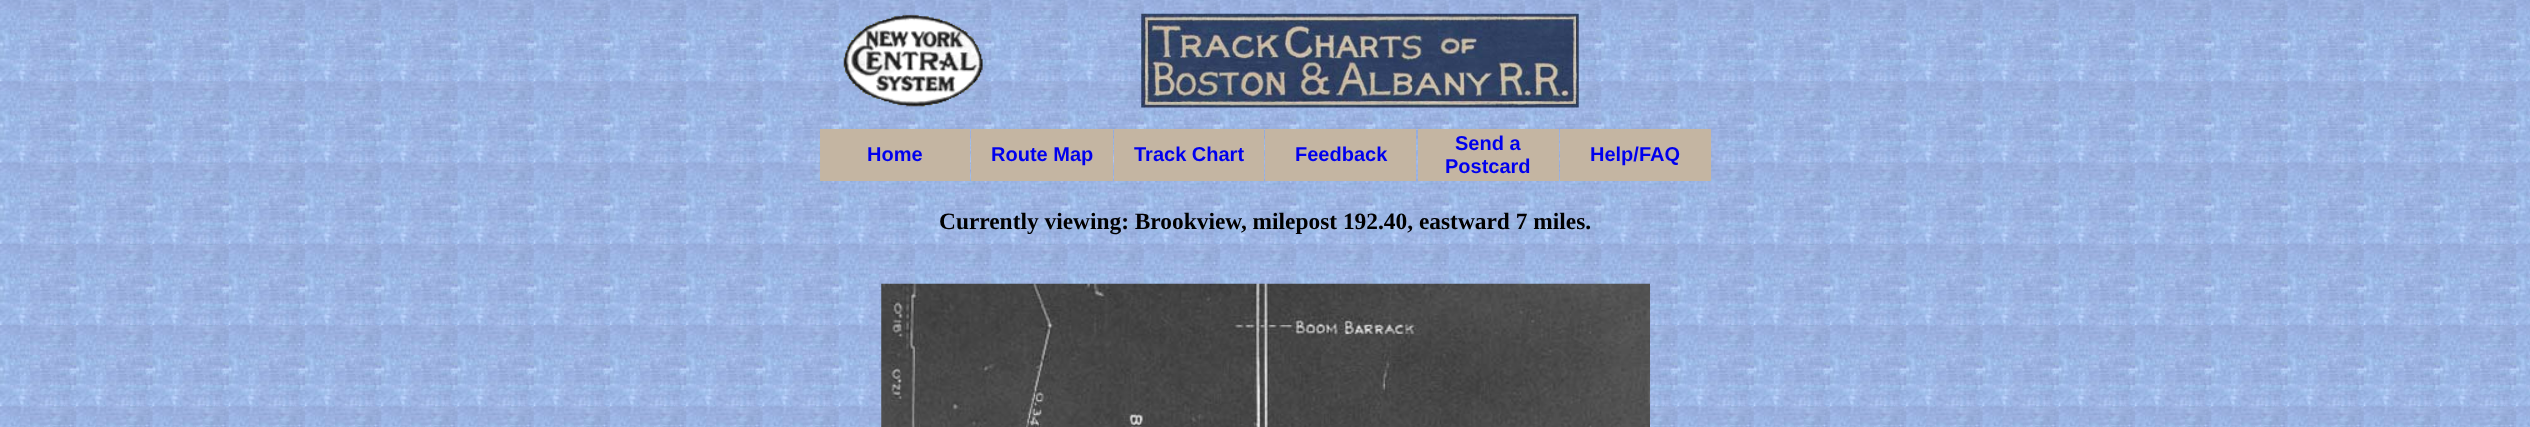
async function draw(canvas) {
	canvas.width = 2530;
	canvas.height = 427;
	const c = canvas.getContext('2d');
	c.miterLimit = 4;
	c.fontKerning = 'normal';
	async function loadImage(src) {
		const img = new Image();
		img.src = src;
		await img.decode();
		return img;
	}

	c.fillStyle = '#fff';
	c.fillRect(0, 0, 2530, 427);
	c.drawImage(await loadImage('img1.png'), 0, 0, 2530, 427);
	c.drawImage(await loadImage('img2.png'), 843, 14, 140, 93);
	c.drawImage(await loadImage('img3.png'), 1141, 13, 438, 95);
	c.fillStyle = '#c4b5a2';
	c.fillRect(820, 129, 150, 52);
	c.font = 'bold 20px Liberation Sans';
	c.fillStyle = '#00e';
	c.fillText('Home', 867, 161);
	c.fillStyle = '#c4b5a2';
	c.fillRect(971, 129, 142, 52);
	c.fillStyle = '#00e';
	c.fillText('Route Map', 991, 161);
	c.fillStyle = '#c4b5a2';
	c.fillRect(1114, 129, 150, 52);
	c.fillStyle = '#00e';
	c.fillText('Track Chart', 1134, 161);
	c.fillStyle = '#c4b5a2';
	c.fillRect(1265, 129, 151, 52);
	c.fillStyle = '#00e';
	c.fillText('Feedback', 1295, 161);
	c.fillStyle = '#c4b5a2';
	c.fillRect(1418, 129, 141, 52);
	c.fillStyle = '#00e';
	c.fillText('Send a', 1455, 150);
	c.fillText('Postcard', 1445, 173);
	c.fillStyle = '#c4b5a2';
	c.fillRect(1560, 129, 151, 52);
	c.fillStyle = '#00e';
	c.fillText('Help/FAQ', 1590, 161);
	c.font = 'bold 23.4px Liberation Serif';
	c.fillStyle = '#000';
	c.fillText('Currently viewing: Brookview, milepost 192.40, eastward 7 miles.', 939, 229);
	c.drawImage(await loadImage('img4.png'), 881, 283, 769, 144);
}

draw(document.querySelector('canvas'));
